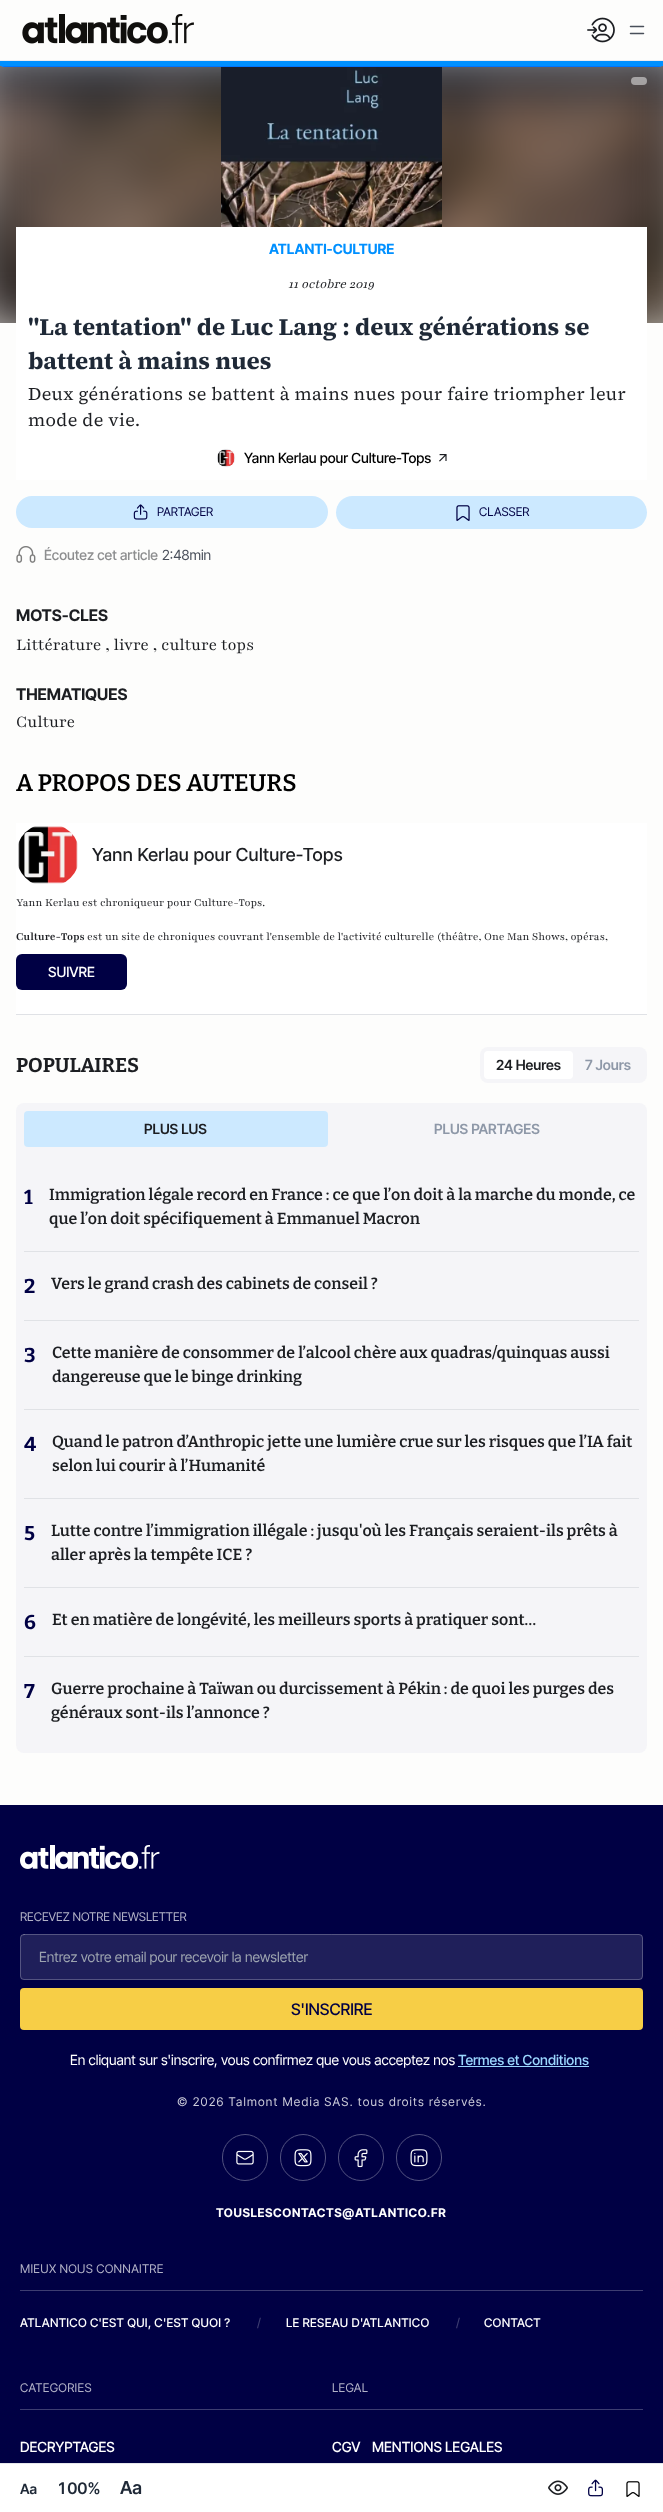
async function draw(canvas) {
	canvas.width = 663;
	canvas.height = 2512;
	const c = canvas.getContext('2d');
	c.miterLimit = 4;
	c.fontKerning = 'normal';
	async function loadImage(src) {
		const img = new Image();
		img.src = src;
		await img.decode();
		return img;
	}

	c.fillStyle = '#fdfdfc';
	c.fillRect(0, 0, 663, 2512);
	c.drawImage(await loadImage('img3.png'), 0, 66, 663, 257);
	c.beginPath();
	c.roundRect(0.5, 59.5, 662, 7, 3.5);
	c.strokeStyle = '#b2b2b2';
	c.stroke();
	c.fillStyle = '#0075ff';
	c.beginPath();
	c.roundRect(0, 59, 663, 8, 4);
	c.fill();
	c.fillStyle = '#fdfdfc';
	c.fillRect(1, 59, 661, 1);
	c.fillStyle = '#ebebf0';
	c.fillRect(0, 60, 663, 1);
	c.drawImage(await loadImage('img1.png'), 22, 14, 172, 30);
	c.drawImage(await loadImage('img2.png'), 587, 17, 28, 26);
	c.beginPath();
	c.moveTo(630.5, 26.5);
	c.lineTo(643.5, 26.5);
	c.moveTo(630.5, 33.5);
	c.lineTo(643.5, 33.5);
	c.strokeStyle = '#494f5a';
	c.lineWidth = 1.5;
	c.lineCap = 'round';
	c.lineJoin = 'round';
	c.stroke();
	c.fillStyle = '#0090ff';
	c.fillRect(0, 61, 663, 5);
	c.drawImage(await loadImage('img4.png'), 221, 67, 221, 160);
	c.fillStyle = '#fafafa80';
	c.beginPath();
	c.roundRect(631, 77, 16, 8, 4);
	c.fill();
	c.fillStyle = '#fff';
	c.fillRect(16, 227, 631, 253);
	c.font = 'bold 14px Inter Tight';
	c.fillStyle = '#0090ff';
	c.fillText('ATLANTI-CULTURE', 269, 254);
	c.font = 'italic 14px "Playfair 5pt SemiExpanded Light"';
	c.fillStyle = '#1c1e22';
	c.fillText('11 octobre 2019', 288, 288);
	c.font = 'bold 24px "Source Serif 4"';
	c.fillStyle = '#1f2937';
	c.fillText('"La tentation" de Luc Lang : deux générations se', 28, 335);
	c.fillText('battent à mains nues', 28, 369);
	c.letterSpacing = '0.35px';
	c.font = '18px "Source Serif 4"';
	c.fillStyle = '#1c1e22';
	c.fillText('Deux générations se battent à mains nues pour faire triompher leur', 28, 400);
	c.fillText('mode de vie.', 28, 426);
	c.fillStyle = '#e5e7eb';
	c.beginPath();
	c.arc(226, 458, 9.5, 0, 2 * Math.PI);
	c.fill();
	c.strokeStyle = '#fff';
	c.lineWidth = 1;
	c.stroke();
	c.drawImage(await loadImage('img5.png'), 217, 449, 18, 18);
	c.letterSpacing = '0px';
	c.font = '500 14px Inter Tight';
	c.fillStyle = '#000';
	c.fillText('Yann Kerlau pour Culture-Tops', 244, 463);
	c.drawImage(await loadImage('img6.png'), 439, 454, 8, 8);
	c.fillStyle = '#cce9ff';
	c.beginPath();
	c.roundRect(16, 496, 312, 32, 16);
	c.fill();
	c.drawImage(await loadImage('img7.png'), 133, 504, 15, 16);
	c.font = '12px Inter Tight';
	c.fillStyle = '#004';
	c.fillText('PARTAGER', 157, 516);
	c.fillStyle = '#cce9ff';
	c.beginPath();
	c.roundRect(336, 496, 311, 33, 16.5);
	c.fill();
	c.drawImage(await loadImage('img8.png'), 456, 505, 14, 16);
	c.fillStyle = '#004';
	c.fillText('CLASSER', 479, 516);
	c.drawImage(await loadImage('img9.png'), 16, 546, 20, 17);
	c.font = '500 14px Inter Tight';
	c.fillStyle = '#8d8e8f';
	c.fillText('Écoutez cet article', 44, 560);
	c.font = '14px Inter Tight';
	c.fillStyle = '#494f5a';
	c.fillText('2:48min', 162, 560);
	c.fillStyle = '#fff';
	c.fillRect(0, 2464, 663, 48);
	c.fillStyle = '#e5e7eb';
	c.fillRect(0, 2463, 663, 1);
	c.font = '600 14px Inter Tight';
	c.fillStyle = '#1f2937';
	c.fillText('Aa', 20, 2494);
	c.font = '600 16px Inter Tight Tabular';
	c.fillText('100%', 57, 2494);
	c.font = '600 18px Inter Tight';
	c.fillText('Aa', 120, 2494);
	c.drawImage(await loadImage('img10.png'), 548, 2480, 20, 15);
	c.drawImage(await loadImage('img11.png'), 588, 2479, 15, 18);
	c.drawImage(await loadImage('img12.png'), 626, 2481, 14, 16);
	c.font = 'bold 16px Inter Tight';
	c.fillStyle = '#1c1e22';
	c.fillText('MOTS-CLES', 16, 621);
	c.font = '18px "Playfair 5pt SemiExpanded Light"';
	c.fillText('Littérature , livre , culture tops', 16, 650);
	c.font = 'bold 16px Inter Tight';
	c.fillText('THEMATIQUES', 16, 700);
	c.font = '18px "Playfair 5pt SemiExpanded Light"';
	c.fillText('Culture', 16, 727);
	c.font = '600 24px Bitter';
	c.fillStyle = '#000';
	c.fillText('A PROPOS DES AUTEURS', 16, 791);
	c.fillStyle = '#fff';
	c.fillRect(16, 823, 631, 191);
	c.fillStyle = '#e0e2e6';
	c.fillRect(16, 1014, 631, 1);
	c.drawImage(await loadImage('img13.png'), 18, 826, 60, 58);
	c.letterSpacing = '0.35px';
	c.font = '500 18px Inter Tight';
	c.fillStyle = '#1c1e22';
	c.fillText('Yann Kerlau pour Culture-Tops', 92, 861);
	c.letterSpacing = '0px';
	c.font = '12px "Playfair 5pt SemiExpanded Light"';
	c.fillText('Yann Kerlau est chroniqueur pour Culture-Tops.', 16, 906);
	c.font = 'bold 12px "Playfair 5pt SemiExpanded Light"';
	c.fillText('Culture-Tops', 16, 940);
	c.font = '12px "Playfair 5pt SemiExpanded Light"';
	c.fillText('est un site de chroniques couvrant l\'ensemble de l\'activité culturelle (théâtre, One Man Shows, opéras,', 87, 940);
	c.fillStyle = '#004';
	c.beginPath();
	c.roundRect(16, 954, 111, 36, 6);
	c.fill();
	c.font = '500 14px Inter Tight';
	c.fillStyle = '#fff';
	c.fillText('SUIVRE', 48, 977);
	c.font = 'bold 20px Bitter';
	c.fillStyle = '#1c1e22';
	c.fillText('POPULAIRES', 16, 1072);
	c.fillStyle = '#f5f5f8';
	c.beginPath();
	c.roundRect(480, 1047, 167, 36, 8);
	c.fill();
	c.fillStyle = '#fff';
	c.beginPath();
	c.roundRect(484, 1051, 89, 28, 4);
	c.fill();
	c.font = '600 14px Inter Tight';
	c.fillStyle = '#1c1e22';
	c.fillText('24 Heures', 496, 1070);
	c.fillStyle = '#8e98a8';
	c.fillText('7 Jours', 585, 1070);
	c.fillStyle = '#f5f5f8';
	c.beginPath();
	c.roundRect(16, 1103, 631, 650, 8);
	c.fill();
	c.fillStyle = '#cce9ff';
	c.beginPath();
	c.roundRect(24, 1111, 304, 36, 4);
	c.fill();
	c.fillStyle = '#1c1e22';
	c.fillText('PLUS LUS', 144, 1134);
	c.fillStyle = '#8e98a8';
	c.fillText('PLUS PARTAGES', 434, 1134);
	c.fillStyle = '#e0e2e6';
	c.fillRect(24, 1251, 615, 1);
	c.font = 'bold 20px Bitter';
	c.fillStyle = '#004';
	c.fillText('1', 24, 1204);
	c.font = '600 16px Bitter';
	c.fillStyle = '#1c1e22';
	c.fillText('Immigration légale record en France : ce que l’on doit à la marche du monde, ce', 49, 1200);
	c.fillText('que l’on doit spécifiquement à Emmanuel Macron', 49, 1224);
	c.fillStyle = '#e0e2e6';
	c.fillRect(24, 1320, 615, 1);
	c.font = 'bold 20px Bitter';
	c.fillStyle = '#004';
	c.fillText('2', 24, 1293);
	c.font = '600 16px Bitter';
	c.fillStyle = '#1c1e22';
	c.fillText('Vers le grand crash des cabinets de conseil ?', 51, 1289);
	c.fillStyle = '#e0e2e6';
	c.fillRect(24, 1409, 615, 1);
	c.font = 'bold 20px Bitter';
	c.fillStyle = '#004';
	c.fillText('3', 24, 1362);
	c.font = '600 16px Bitter';
	c.fillStyle = '#1c1e22';
	c.fillText('Cette manière de consommer de l’alcool chère aux quadras/quinquas aussi', 52, 1358);
	c.fillText('dangereuse que le binge drinking', 52, 1382);
	c.fillStyle = '#e0e2e6';
	c.fillRect(24, 1498, 615, 1);
	c.font = 'bold 20px Bitter';
	c.fillStyle = '#004';
	c.fillText('4', 24, 1451);
	c.font = '600 16px Bitter';
	c.fillStyle = '#1c1e22';
	c.fillText('Quand le patron d’Anthropic jette une lumière crue sur les risques que l’IA fait', 52, 1447);
	c.fillText('selon lui courir à l’Humanité', 52, 1471);
	c.fillStyle = '#e0e2e6';
	c.fillRect(24, 1587, 615, 1);
	c.font = 'bold 20px Bitter';
	c.fillStyle = '#004';
	c.fillText('5', 24, 1540);
	c.font = '600 16px Bitter';
	c.fillStyle = '#1c1e22';
	c.fillText('Lutte contre l’immigration illégale : jusqu\'où les Français seraient-ils prêts à', 51, 1536);
	c.fillText('aller après la tempête ICE ?', 51, 1560);
	c.fillStyle = '#e0e2e6';
	c.fillRect(24, 1656, 615, 1);
	c.font = 'bold 20px Bitter';
	c.fillStyle = '#004';
	c.fillText('6', 24, 1629);
	c.font = '600 16px Bitter';
	c.fillStyle = '#1c1e22';
	c.fillText('Et en matière de longévité, les meilleurs sports à pratiquer sont…', 52, 1625);
	c.font = 'bold 20px Bitter';
	c.fillStyle = '#004';
	c.fillText('7', 24, 1698);
	c.font = '600 16px Bitter';
	c.fillStyle = '#1c1e22';
	c.fillText('Guerre prochaine à Taïwan ou durcissement à Pékin : de quoi les purges des', 51, 1694);
	c.fillText('généraux sont-ils l’annonce ?', 51, 1718);
	c.fillStyle = '#004';
	c.fillRect(0, 1805, 663, 658);
	c.drawImage(await loadImage('img14.png'), 20, 1845, 140, 24);
	c.font = '12px Inter Tight';
	c.fillStyle = '#b2b2c7';
	c.fillText('RECEVEZ NOTRE NEWSLETTER', 20, 1921);
	c.fillStyle = '#1f1f5a';
	c.beginPath();
	c.roundRect(20, 1934, 623, 46, 4);
	c.fill();
	c.beginPath();
	c.roundRect(20.5, 1934.5, 622, 45, 3.5);
	c.strokeStyle = '#ffffff3d';
	c.lineJoin = 'miter';
	c.stroke();
	c.font = '14px Inter Tight';
	c.fillStyle = '#9ca3af';
	c.fillText('Entrez votre email pour recevoir la newsletter', 39, 1962);
	c.fillStyle = '#f7ce46';
	c.beginPath();
	c.roundRect(20, 1988, 623, 42, 4);
	c.fill();
	c.font = '500 16px Inter Tight';
	c.fillStyle = '#004';
	c.fillText('S\'INSCRIRE', 291, 2015);
	c.font = '14px Inter Tight';
	c.fillStyle = '#fff';
	c.fillText('En cliquant sur s\'inscrire, vous confirmez que vous acceptez nos', 70, 2065);
	c.font = '500 14px Inter Tight';
	c.fillStyle = '#9bd7ff';
	c.fillText('Termes et Conditions', 458, 2065);
	c.fillRect(458, 2066, 131, 1);
	c.letterSpacing = '1.2px';
	c.font = '12px Inter Tight';
	c.fillStyle = '#ccccda';
	c.fillText('© 2026 Talmont Media SAS. tous droits réservés.', 177, 2106);
	c.beginPath();
	c.roundRect(222.5, 2134.5, 45, 46, 22.5);
	c.strokeStyle = '#525280';
	c.stroke();
	c.drawImage(await loadImage('img15.png'), 236, 2150, 18, 15);
	c.beginPath();
	c.roundRect(280.5, 2134.5, 45, 46, 22.5);
	c.stroke();
	c.drawImage(await loadImage('img16.png'), 294, 2149, 18, 18);
	c.beginPath();
	c.roundRect(338.5, 2134.5, 45, 46, 22.5);
	c.stroke();
	c.drawImage(await loadImage('img17.png'), 354, 2149, 14, 19);
	c.beginPath();
	c.roundRect(396.5, 2134.5, 45, 46, 22.5);
	c.stroke();
	c.drawImage(await loadImage('img18.png'), 410, 2149, 18, 18);
	c.letterSpacing = '0.6px';
	c.font = 'bold 12px Inter Tight';
	c.fillStyle = '#fff';
	c.fillText('TOUSLESCONTACTS@ATLANTICO.FR', 216, 2217);
	c.fillStyle = '#3d3d71';
	c.fillRect(20, 2290, 623, 1);
	c.letterSpacing = '0.3px';
	c.font = '12px Inter Tight';
	c.fillStyle = '#b2b2c7';
	c.fillText('MIEUX NOUS CONNAITRE', 20, 2273);
	c.font = '500 12px Inter Tight';
	c.fillStyle = '#fff';
	c.fillText('ATLANTICO C\'EST QUI, C\'EST QUOI ?', 20, 2327);
	c.fillStyle = '#3d3d71';
	c.fillText('/', 257, 2327);
	c.fillStyle = '#fff';
	c.fillText('LE RESEAU D\'ATLANTICO', 286, 2327);
	c.fillStyle = '#3d3d71';
	c.fillText('/', 456, 2327);
	c.fillStyle = '#fff';
	c.fillText('CONTACT', 484, 2327);
	c.fillStyle = '#3d3d71';
	c.fillRect(20, 2409, 623, 1);
	c.font = '12px Inter Tight';
	c.fillStyle = '#b2b2c7';
	c.fillText('CATEGORIES', 20, 2392);
	c.letterSpacing = '0px';
	c.font = '500 14px Inter Tight';
	c.fillStyle = '#fff';
	c.fillText('DECRYPTAGES', 20, 2452);
	c.letterSpacing = '0.3px';
	c.font = '12px Inter Tight';
	c.fillStyle = '#b2b2c7';
	c.fillText('LEGAL', 332, 2392);
	c.letterSpacing = '0px';
	c.font = '500 14px Inter Tight';
	c.fillStyle = '#fff';
	c.fillText('CGV', 332, 2452);
	c.fillText('MENTIONS LEGALES', 372, 2452);
}

draw(document.querySelector('canvas'));
